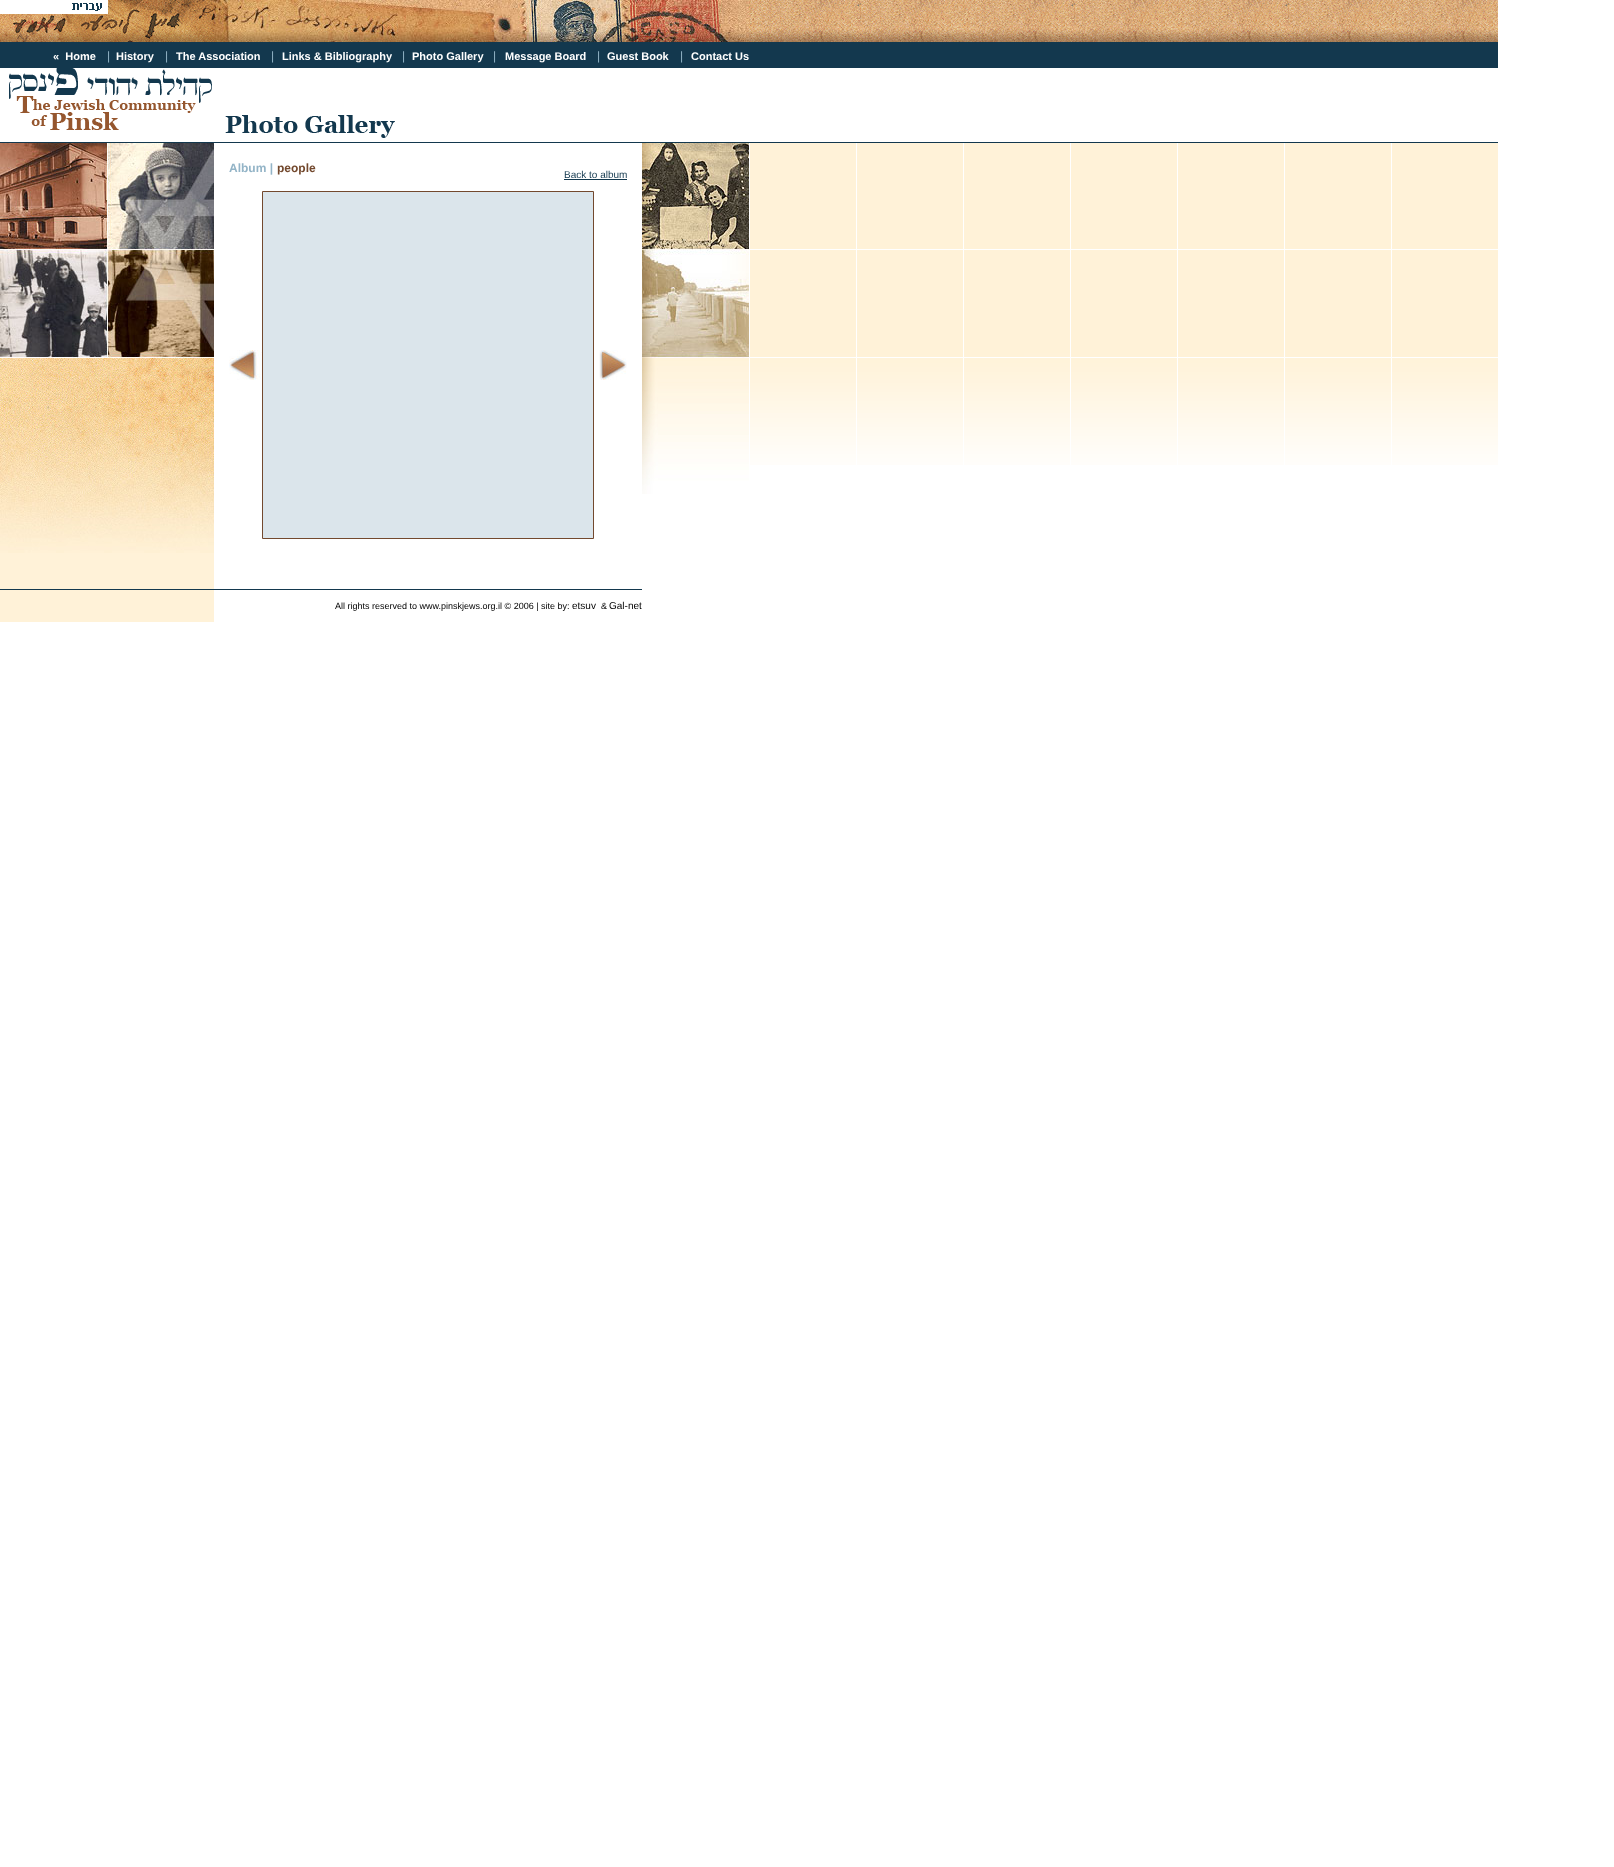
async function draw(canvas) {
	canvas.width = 1614;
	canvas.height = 1867;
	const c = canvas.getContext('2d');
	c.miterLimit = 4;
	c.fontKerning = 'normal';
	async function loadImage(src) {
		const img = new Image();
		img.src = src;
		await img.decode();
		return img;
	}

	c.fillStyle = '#fff';
	c.fillRect(0, 0, 1614, 1867);
	c.drawImage(await loadImage('img1.png'), 0, 0, 1498, 465);
	c.drawImage(await loadImage('img2.png'), 0, 0, 214, 42);
	c.drawImage(await loadImage('img3.png'), 214, 0, 428, 42);
	c.drawImage(await loadImage('img4.png'), 642, 0, 107, 42);
	c.font = 'bold 11px Liberation Sans';
	c.fillText('«  Home', 53, 60);
	c.font = '12px Liberation Sans';
	c.fillStyle = '#93b4c7';
	c.fillText('|', 107, 60);
	c.font = 'bold 11px Liberation Sans';
	c.fillStyle = '#fff';
	c.fillText('History', 116, 60);
	c.font = '12px Liberation Sans';
	c.fillStyle = '#93b4c7';
	c.fillText('|', 165, 60);
	c.font = 'bold 11px Liberation Sans';
	c.fillStyle = '#fff';
	c.fillText('The Association', 176, 60);
	c.font = '12px Liberation Sans';
	c.fillStyle = '#93b4c7';
	c.fillText('|', 271, 60);
	c.font = 'bold 11px Liberation Sans';
	c.fillStyle = '#fff';
	c.fillText('Links & Bibliography', 282, 60);
	c.font = '12px Liberation Sans';
	c.fillStyle = '#93b4c7';
	c.fillText('|', 402, 60);
	c.font = 'bold 11px Liberation Sans';
	c.fillStyle = '#fff';
	c.fillText('Photo Gallery', 412, 60);
	c.font = '12px Liberation Sans';
	c.fillStyle = '#93b4c7';
	c.fillText('|', 493, 60);
	c.font = 'bold 11px Liberation Sans';
	c.fillStyle = '#fff';
	c.fillText('Message Board', 505, 60);
	c.font = '12px Liberation Sans';
	c.fillStyle = '#93b4c7';
	c.fillText('|', 597, 60);
	c.font = 'bold 11px Liberation Sans';
	c.fillStyle = '#fff';
	c.fillText('Guest Book', 607, 60);
	c.font = '12px Liberation Sans';
	c.fillStyle = '#93b4c7';
	c.fillText('|', 680, 60);
	c.font = 'bold 11px Liberation Sans';
	c.fillStyle = '#fff';
	c.fillText('Contact Us', 691, 60);
	c.drawImage(await loadImage('img5.png'), 9, 68, 203, 62);
	c.drawImage(await loadImage('img6.png'), 225, 115, 170, 23);
	c.fillStyle = '#fff2d8';
	c.fillRect(0, 553, 214, 36);
	c.drawImage(await loadImage('img7.png'), 0, 143, 214, 215);
	c.drawImage(await loadImage('img8.png'), 0, 358, 214, 195);
	c.fillStyle = '#fff';
	c.fillRect(215, 143, 427, 322);
	c.font = 'bold 12px Liberation Sans';
	c.fillStyle = '#93b4c7';
	c.fillText('Album |', 229, 172);
	c.fillStyle = '#73492e';
	c.fillText('people', 277, 172);
	c.font = '10px Liberation Sans';
	c.fillStyle = '#13384e';
	c.fillText('Back to album', 564, 178);
	c.fillRect(564, 179, 63, 1);
	c.drawImage(await loadImage('img9.png'), 229, 350, 33, 30);
	c.fillStyle = '#dbe5eb';
	c.beginPath();
	c.rect(262.5, 191.5, 331, 347);
	c.fill();
	c.strokeStyle = '#73492e';
	c.stroke();
	c.drawImage(await loadImage('img10.png'), 599, 350, 28, 30);
	c.drawImage(await loadImage('img11.png'), 642, 143, 107, 215);
	c.drawImage(await loadImage('img12.png'), 642, 358, 107, 136);
	c.drawImage(await loadImage('img13.png'), 0, 589, 642, 33);
	c.font = '9px Liberation Sans';
	c.fillStyle = '#000';
	c.fillText('All rights reserved to www.pinskjews.org.il © 2006 | site by:', 335, 609);
	c.font = '10px Liberation Sans';
	c.fillText('etsuv', 572, 609);
	c.font = '9px Liberation Sans';
	c.fillText('&', 601, 609);
	c.font = '10px Liberation Sans';
	c.fillText('Gal-net', 609, 609);
}

draw(document.querySelector('canvas'));
